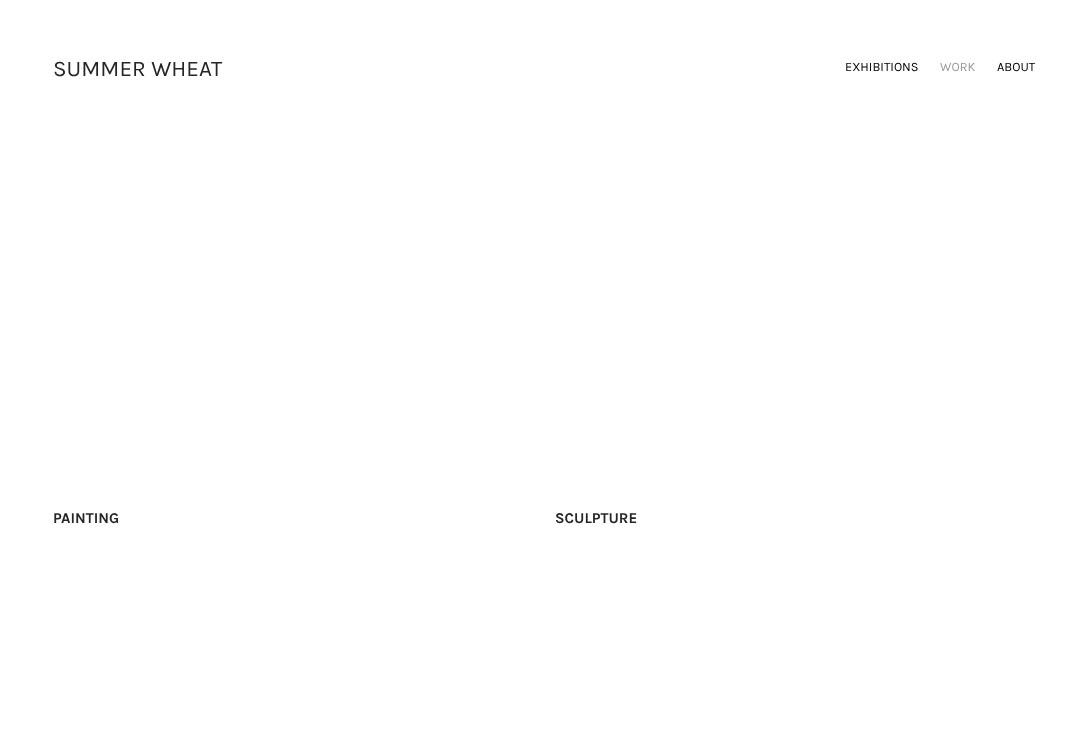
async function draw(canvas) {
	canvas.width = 1088;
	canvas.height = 740;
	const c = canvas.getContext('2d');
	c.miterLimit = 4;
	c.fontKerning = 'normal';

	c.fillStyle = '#fff';
	c.fillRect(0, 0, 1088, 740);
	c.font = '22.5px Karla';
	c.fillStyle = '#262626';
	c.fillText('SUMMER WHEAT', 53, 76);
	c.font = '12.75px Karla';
	c.fillStyle = '#000';
	c.fillText('EXHIBITIONS', 845, 71);
	c.fillStyle = '#999';
	c.fillText('WORK', 940, 71);
	c.fillStyle = '#000';
	c.fillText('ABOUT', 997, 71);
	c.font = 'bold 15px Karla';
	c.fillStyle = '#262626';
	c.fillText('PAINTING', 53, 523);
	c.fillText('SCULPTURE', 555, 523);
}

draw(document.querySelector('canvas'));
